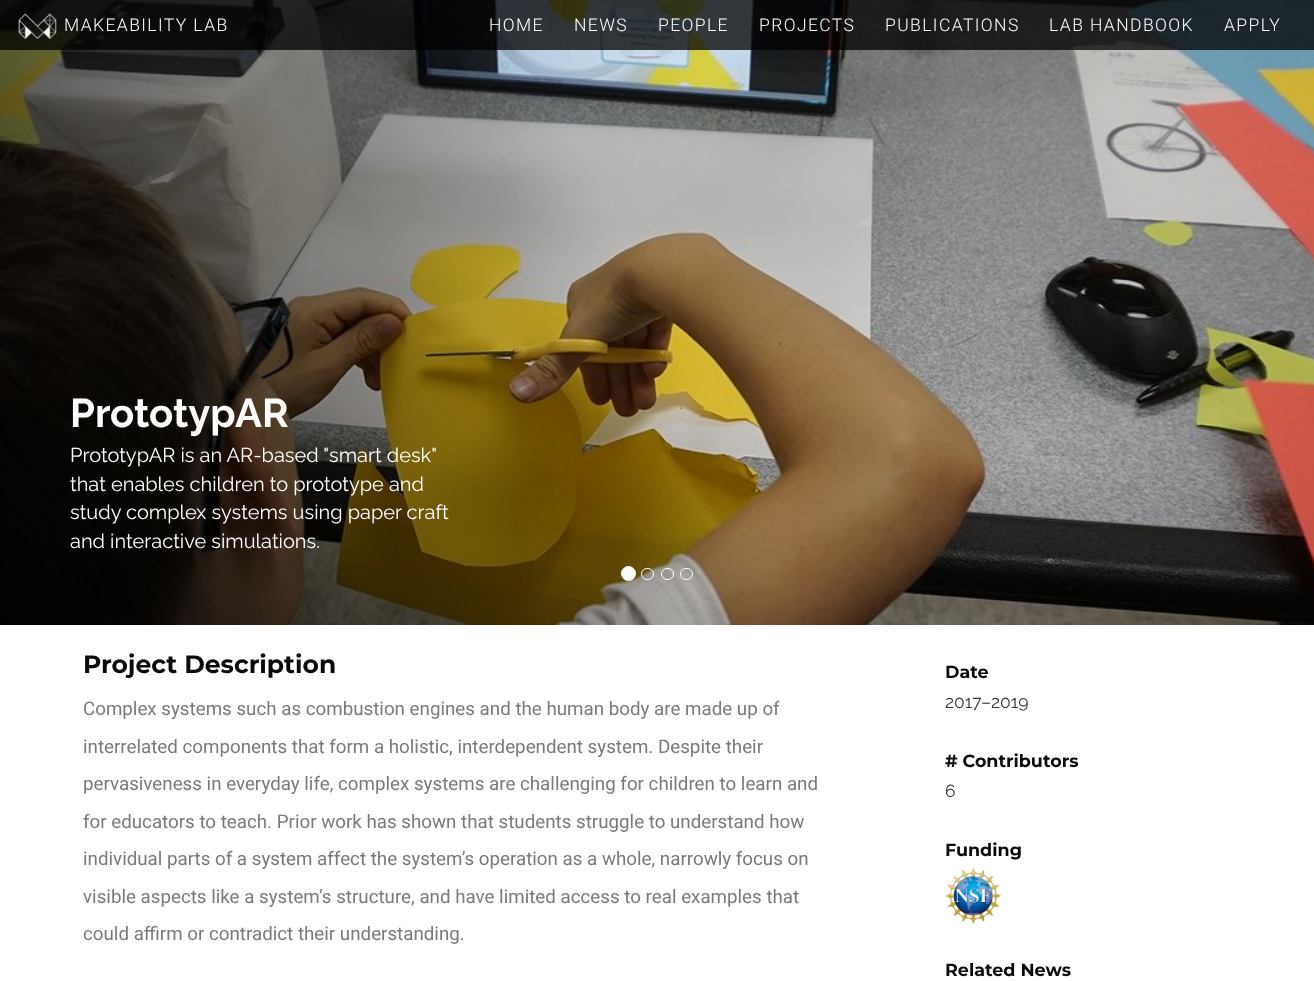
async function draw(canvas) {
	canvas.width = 1314;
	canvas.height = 981;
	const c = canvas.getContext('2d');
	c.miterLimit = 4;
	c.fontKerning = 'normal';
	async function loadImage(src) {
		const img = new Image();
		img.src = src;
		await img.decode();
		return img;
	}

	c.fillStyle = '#fff';
	c.fillRect(0, 0, 1314, 981);
	c.drawImage(await loadImage('img2.png'), 0, 0, 1314, 625);
	c.fillStyle = '#000000bf';
	c.fillRect(0, 0, 1314, 50);
	c.drawImage(await loadImage('img1.png'), 18, 13, 39, 26);
	c.letterSpacing = '1.4px';
	c.font = '300 17.5px Roboto';
	c.fillStyle = '#fff';
	for (const [text, x, y] of [
		['MAKEABILITY LAB', 64, 31],
		['HOME', 489, 31],
		['NEWS', 574, 31],
		['PEOPLE', 658, 31],
		['PROJECTS', 759, 31],
		['PUBLICATIONS', 885, 31],
		['LAB HANDBOOK', 1049, 31],
		['APPLY', 1224, 31],
	]) {
		c.fillText(text, x, y);
	}
	c.letterSpacing = '0px';
	c.font = 'bold 40px Raleway';
	c.fillText('PrototypAR', 70, 427);
	c.font = '20px Raleway';
	for (const [text, x, y] of [
		['PrototypAR is an AR-based "smart desk"', 70, 462],
		['that enables children to prototype and', 70, 491],
		['study complex systems using paper craft', 70, 519],
		['and interactive simulations.', 70, 548],
	]) {
		c.fillText(text, x, y);
	}
	c.beginPath();
	c.arc(628.5, 573.5, 7, 0, 2 * Math.PI);
	c.fill();
	c.strokeStyle = '#fff';
	c.stroke();
	c.beginPath();
	c.roundRect(641.5, 568.5, 12, 11, 5.5);
	c.stroke();
	c.beginPath();
	c.roundRect(661.5, 568.5, 12, 11, 5.5);
	c.stroke();
	c.beginPath();
	c.roundRect(680.5, 568.5, 12, 11, 5.5);
	c.stroke();
	c.font = 'bold 25px Montserrat';
	c.fillStyle = '#0a0a0a';
	c.fillText('Project Description', 83, 673);
	c.font = '18.75px Roboto';
	c.fillStyle = '#7a7a7a';
	for (const [text, x, y] of [
		['Complex systems such as combustion engines and the human body are made up of', 83, 715],
		['interrelated components that form a holistic, interdependent system. Despite their', 83, 753],
		['pervasiveness in everyday life, complex systems are challenging for children to learn and', 83, 790],
		['for educators to teach. Prior work has shown that students struggle to understand how', 83, 828],
		['individual parts of a system affect the system’s operation as a whole, narrowly focus on', 83, 865],
		['visible aspects like a system’s structure, and have limited access to real examples that', 83, 903],
		['could affirm or contradict their understanding.', 83, 940],
	]) {
		c.fillText(text, x, y);
	}
	c.font = 'bold 17.5px Montserrat';
	c.fillStyle = '#0a0a0a';
	c.fillText('Date', 945, 678);
	c.font = '17.5px Raleway';
	c.fillStyle = '#333';
	c.fillText('2017–2019', 945, 708);
	c.font = 'bold 17.5px Montserrat';
	c.fillStyle = '#0a0a0a';
	c.fillText('# Contributors', 945, 767);
	c.font = '17.5px Raleway';
	c.fillStyle = '#333';
	c.fillText('6', 945, 797);
	c.font = 'bold 17.5px Montserrat';
	c.fillStyle = '#0a0a0a';
	c.fillText('Funding', 945, 856);
	c.drawImage(await loadImage('img3.png'), 945, 868, 56, 56);
	c.fillText('Related News', 945, 976);
}

draw(document.querySelector('canvas'));
